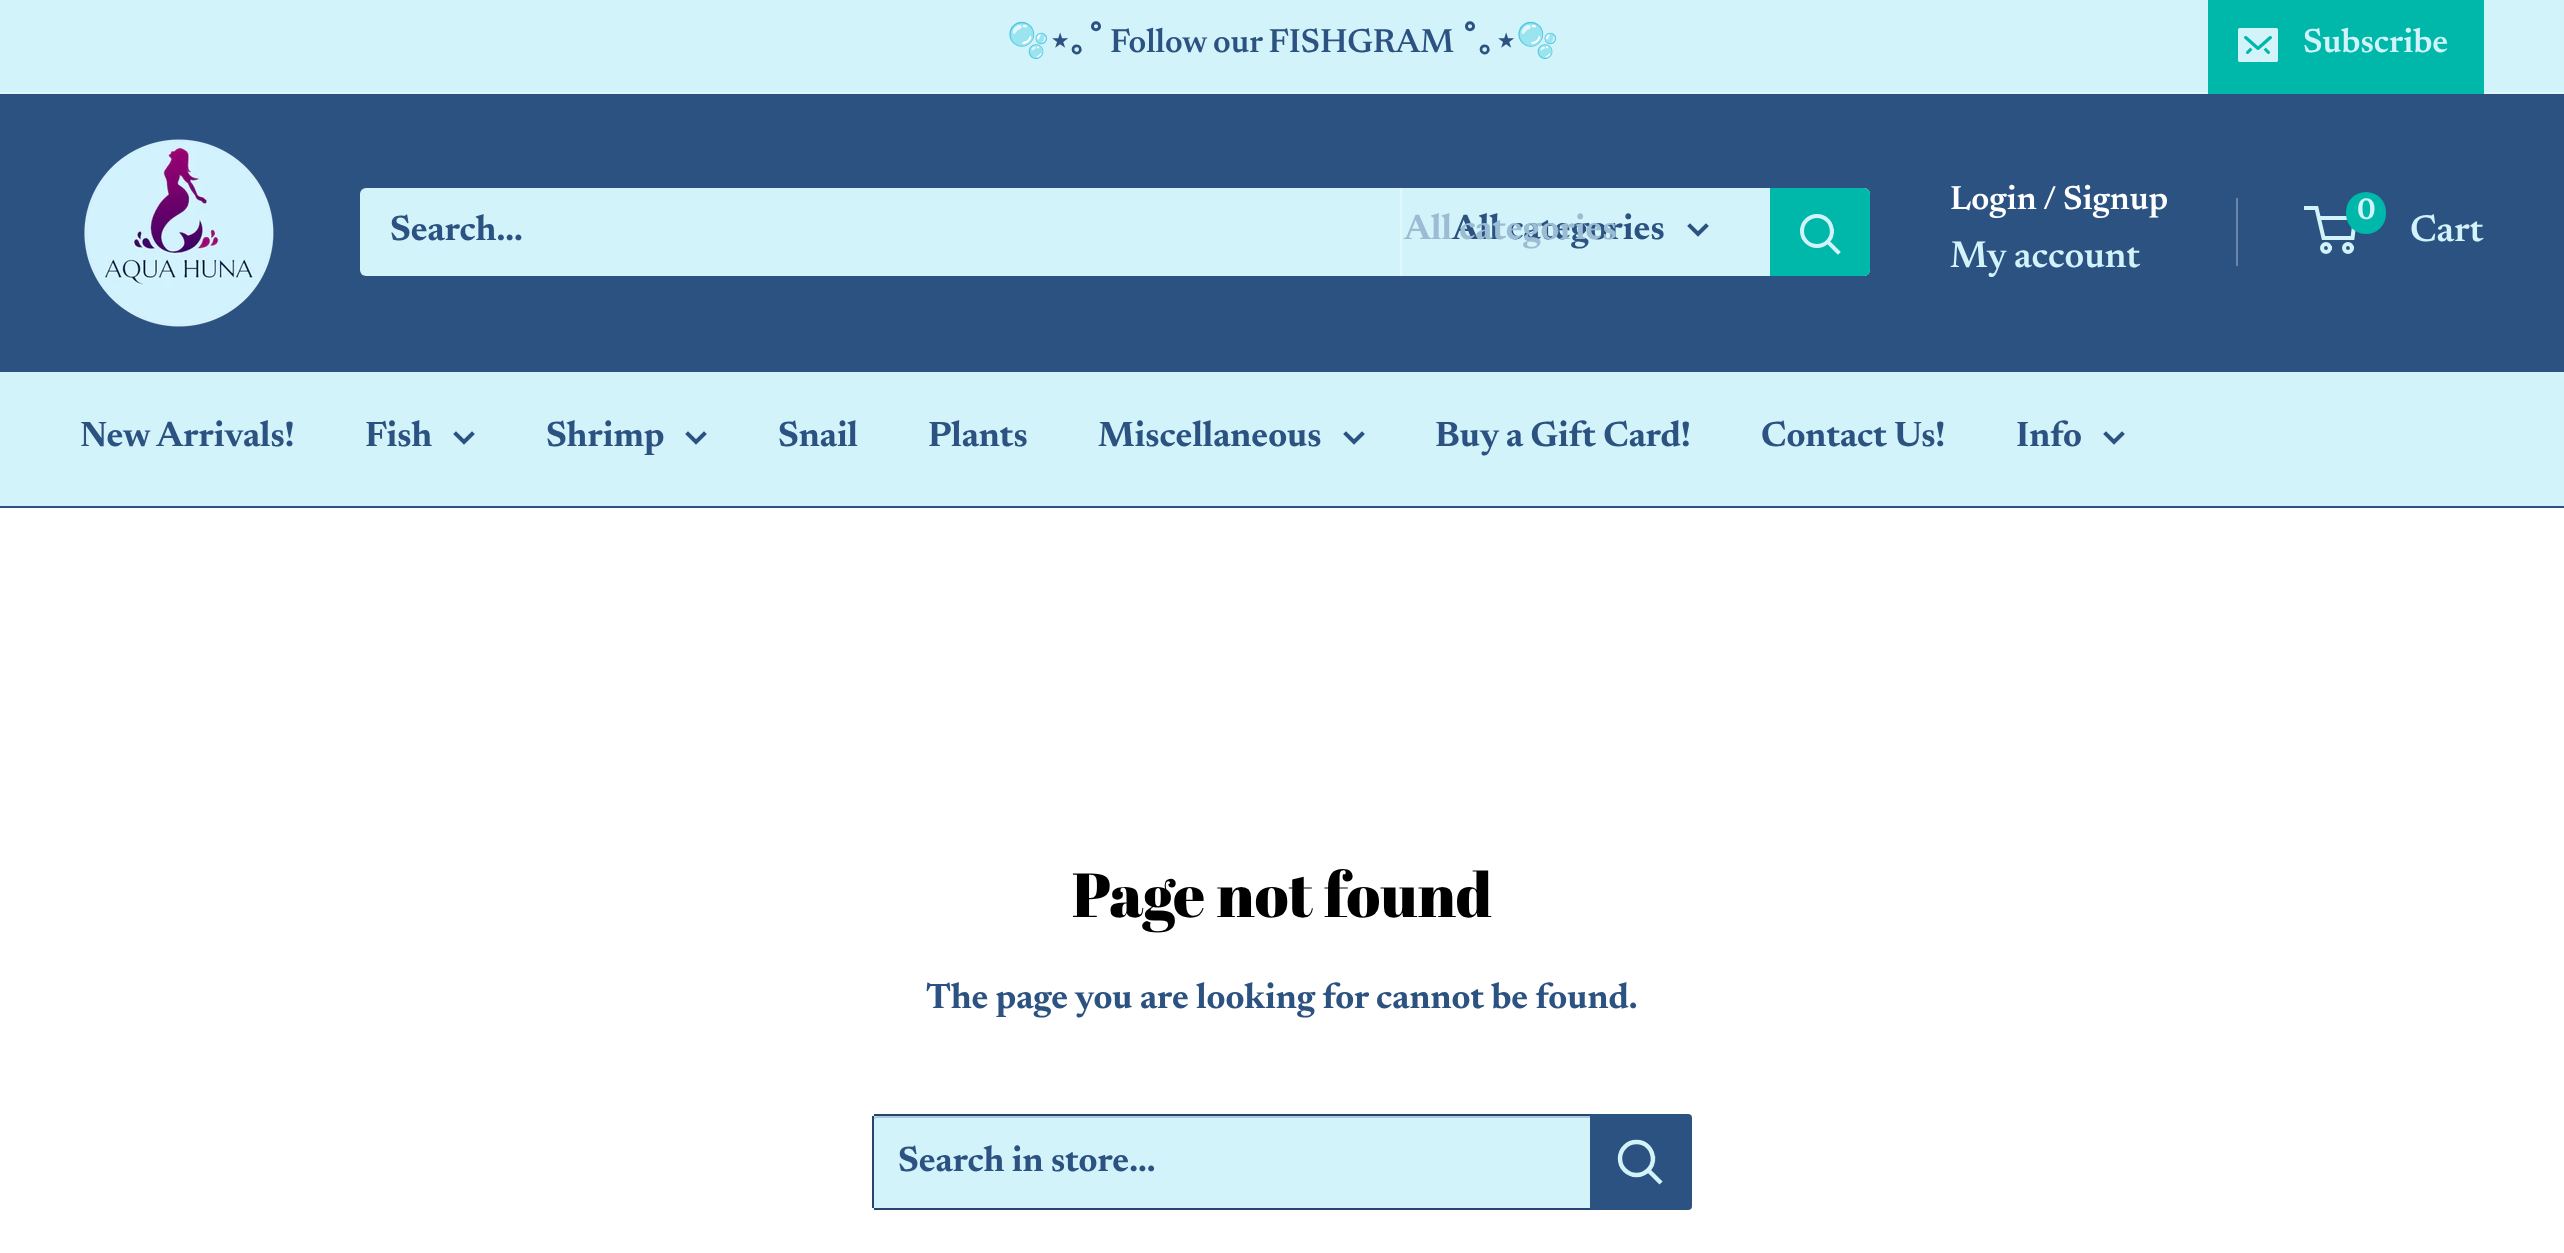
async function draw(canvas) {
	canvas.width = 2564;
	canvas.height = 1253;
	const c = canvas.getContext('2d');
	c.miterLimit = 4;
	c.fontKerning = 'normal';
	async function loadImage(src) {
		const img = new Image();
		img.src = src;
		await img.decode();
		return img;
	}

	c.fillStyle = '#fff';
	c.fillRect(0, 0, 2564, 1253);
	c.fillStyle = '#d3f3fb';
	c.fillRect(0, 0, 2564, 92);
	c.fillStyle = '#e0f7fc';
	c.fillRect(0, 92, 2564, 2);
	c.font = 'bold 34px Noto Color Emoji';
	c.fillStyle = '#2c5282';
	c.fillText('🫧', 1007, 52);
	c.font = 'bold 34px DejaVu Sans';
	c.fillText('⋆', 1049, 52);
	c.fillText('˚', 1087, 52);
	c.wordSpacing = '-1px';
	c.font = '600 34px Newsreader';
	c.fillText('Follow our FISHGRAM', 1110, 52);
	c.wordSpacing = '0px';
	c.font = 'bold 34px DejaVu Sans';
	c.fillText('˚', 1461, 52);
	c.fillText('⋆', 1495, 52);
	c.font = 'bold 34px Noto Color Emoji';
	c.fillText('🫧', 1516, 52);
	c.font = 'bold 34px IPAGothic';
	c.fillText('｡', 1070, 52);
	c.fillText('｡', 1478, 52);
	c.fillStyle = '#00b8a9';
	c.fillRect(2208, 0, 276, 94);
	c.drawImage(await loadImage('img1.png'), 2238, 28, 40, 34);
	c.font = '600 34px "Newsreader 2"';
	c.fillStyle = '#d3f3fb';
	c.fillText('Subscribe', 2303, 52);
	c.fillStyle = '#2c5282';
	c.fillRect(0, 94, 2564, 278);
	c.drawImage(await loadImage('img2.png'), 84, 139, 190, 188);
	c.fillStyle = '#d3f3fb';
	c.beginPath();
	c.roundRect(360, 188, 1510, 88, 6);
	c.fill();
	c.font = 'bold 36px Newsreader';
	c.fillStyle = '#2c5282';
	c.fillText('Search...', 390, 240);
	c.fillStyle = '#e0f7fc';
	c.fillRect(1400, 188, 2, 88);
	c.fillStyle = '#2c5282';
	c.fillText('All categories', 1452, 239);
	c.fillStyle = '#9bbdd3';
	c.fillText('All categories', 1404, 239);
	c.beginPath();
	c.moveTo(1706, 226);
	c.lineTo(1698, 234);
	c.lineTo(1690, 226);
	c.strokeStyle = '#2c5282';
	c.lineWidth = 4;
	c.lineCap = 'square';
	c.stroke();
	c.fillStyle = '#00b8a9';
	c.beginPath();
	c.roundRect(1770, 188, 100, 88, [0, 6, 6, 0]);
	c.fill();
	c.beginPath();
	c.moveTo(1838, 252);
	c.lineTo(1828, 242);
	c.strokeStyle = '#d3f3fb';
	c.stroke();
	c.beginPath();
	c.arc(1817, 231, 15, 0, 2 * Math.PI);
	c.stroke();
	c.font = '600 34px "Newsreader 2"';
	c.fillStyle = '#fff';
	c.fillText('Login / Signup', 1950, 209);
	c.fillStyle = '#6b86a8';
	c.fillRect(2236, 198, 2, 68);
	c.font = '600 38px Newsreader';
	c.fillStyle = '#d3f3fb';
	c.fillText('My account', 1950, 267);
	c.beginPath();
	c.arc(2326, 248, 4, 0, 2 * Math.PI);
	c.stroke();
	c.beginPath();
	c.arc(2348, 248, 4, 0, 2 * Math.PI);
	c.stroke();
	c.beginPath();
	c.moveTo(2318.5, 218);
	c.lineTo(2355, 218);
	c.lineTo(2352.5, 238);
	c.lineTo(2323.5, 238);
	c.lineTo(2316.5, 208);
	c.lineTo(2304, 208);
	c.lineCap = 'butt';
	c.stroke();
	c.fillStyle = '#00b8a9';
	c.beginPath();
	c.roundRect(2346, 192, 40, 42, 20);
	c.fill();
	c.font = '600 30px "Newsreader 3"';
	c.fillStyle = '#d3f3fb';
	c.fillText('0', 2357, 219);
	c.font = '600 38px Newsreader';
	c.fillText('Cart', 2410, 241);
	c.fillRect(0, 372, 2564, 134);
	c.fillStyle = '#2c5282';
	c.fillRect(0, 506, 2564, 2);
	c.font = 'bold 36px Newsreader';
	c.fillText('New Arrivals!', 80, 446);
	c.fillText('Fish', 365, 446);
	c.beginPath();
	c.moveTo(472, 434);
	c.lineTo(464, 442);
	c.lineTo(456, 434);
	c.strokeStyle = '#2c5282';
	c.lineCap = 'square';
	c.stroke();
	c.fillText('Shrimp', 546, 446);
	c.beginPath();
	c.moveTo(704, 434);
	c.lineTo(696, 442);
	c.lineTo(688, 434);
	c.stroke();
	for (const [text, x, y] of [
		['Snail', 778, 446],
		['Plants', 928, 446],
		['Miscellaneous', 1098, 446],
	]) {
		c.fillText(text, x, y);
	}
	c.beginPath();
	c.moveTo(1362, 434);
	c.lineTo(1354, 442);
	c.lineTo(1346, 434);
	c.stroke();
	for (const [text, x, y] of [
		['Buy a Gift Card!', 1435, 446],
		['Contact Us!', 1761, 446],
		['Info', 2016, 446],
	]) {
		c.fillText(text, x, y);
	}
	c.beginPath();
	c.moveTo(2122, 434);
	c.lineTo(2114, 442);
	c.lineTo(2106, 434);
	c.stroke();
	c.font = '62px Abril Fatface';
	c.fillStyle = '#000';
	c.fillText('Page not found', 1072, 917);
	c.font = 'bold 36px Newsreader';
	c.fillStyle = '#2c5282';
	c.fillText('The page you are looking for cannot be found.', 926, 1008);
	c.fillStyle = '#d3f3fb';
	c.beginPath();
	c.roundRect(872, 1114, 718, 96, [4, 0, 0, 4]);
	c.fill();
	c.fillStyle = '#a9cbdd';
	c.beginPath();
	c.moveTo(876, 1118);
	c.lineTo(1590, 1118);
	c.lineTo(1590, 1116);
	c.lineTo(876, 1116);
	c.lineTo(874, 1117);
	c.lineTo(874, 1120);
	c.bezierCurveTo(874, 1119, 875, 1118, 876, 1118);
	c.closePath();
	c.fill();
	for (const [x, y, w, h, color] of [
		[874, 1114, 716, 2, '#26466f'],
		[874, 1208, 716, 2, '#26466f'],
		[872, 1116, 2, 92, '#26466f'],
	]) {
		c.fillStyle = color;
		c.fillRect(x, y, w, h);
	}
	c.fillStyle = '#2c5282';
	c.fillText('Search in store...', 898, 1171);
	c.beginPath();
	c.roundRect(1590, 1114, 102, 96, [0, 4, 4, 0]);
	c.fill();
	c.beginPath();
	c.moveTo(1659.5, 1181.5);
	c.lineTo(1648.5, 1170.5);
	c.strokeStyle = '#d3f3fb';
	c.lineWidth = 4.4;
	c.stroke();
	c.beginPath();
	c.arc(1636.5, 1158.5, 16.5, 0, 2 * Math.PI);
	c.stroke();
}

draw(document.querySelector('canvas'));
